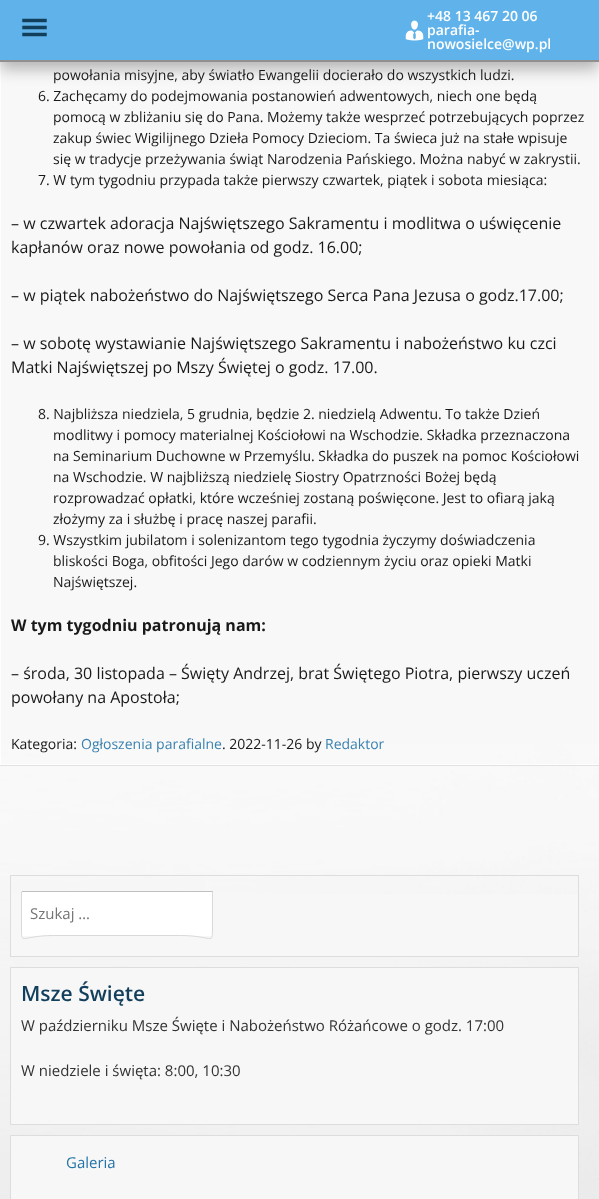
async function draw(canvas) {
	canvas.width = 599;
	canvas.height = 1199;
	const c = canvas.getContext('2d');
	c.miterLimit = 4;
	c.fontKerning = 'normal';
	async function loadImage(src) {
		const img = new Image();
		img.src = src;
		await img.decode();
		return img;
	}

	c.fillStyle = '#fff';
	c.fillRect(0, 0, 599, 1199);
	c.drawImage(await loadImage('img1.png'), 0, 62, 599, 1137);
	c.fillStyle = '#f7f7f7e6';
	c.fillRect(0, 62, 599, 682);
	c.strokeStyle = '#fefefe';
	c.strokeRect(0.5, -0.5, 598, 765);
	c.strokeStyle = '#e1e1e1';
	c.strokeRect(-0.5, -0.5, 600, 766);
	c.fillStyle = '#b2b2b2';
	c.filter = 'blur(7.5px)';
	c.beginPath();
	c.rect(0, 7, 599, 62);
	c.fill();
	c.filter = 'none';
	c.fillStyle = '#60b3ea';
	c.fillRect(0, 0, 599, 60);
	c.drawImage(await loadImage('img2.png'), 22, 18, 25, 19);
	c.fillStyle = '#909090';
	c.fillRect(0, 60, 599, 2);
	c.font = '600 14px Open Sans';
	c.fillStyle = '#fff';
	c.fillText('+48 13 467 20 06', 427, 21);
	c.drawImage(await loadImage('img3.png'), 405, 20, 19, 21);
	c.fillText('parafia-', 427, 35);
	c.fillText('nowosielce@wp.pl', 427, 49);
	c.font = '14px Open Sans';
	c.fillStyle = '#191919';
	for (const [text, x, y] of [
		['powołania misyjne, aby światło Ewangelii docierało do wszystkich ludzi.', 53, 80],
		['6. Zachęcamy do podejmowania postanowień adwentowych, niech one będą', 38, 101],
		['pomocą w zbliżaniu się do Pana. Możemy także wesprzeć potrzebujących poprzez', 53, 122],
		['zakup świec Wigilijnego Dzieła Pomocy Dzieciom. Ta świeca już na stałe wpisuje', 53, 143],
		['się w tradycje przeżywania świąt Narodzenia Pańskiego. Można nabyć w zakrystii.', 53, 164],
		['7. W tym tygodniu przypada także pierwszy czwartek, piątek i sobota miesiąca:', 38, 185],
	]) {
		c.fillText(text, x, y);
	}
	c.font = '16px Open Sans';
	for (const [text, x, y] of [
		['– w czwartek adoracja Najświętszego Sakramentu i modlitwa o uświęcenie', 11, 229],
		['kapłanów oraz nowe powołania od godz. 16.00;', 11, 253],
		['– w piątek nabożeństwo do Najświętszego Serca Pana Jezusa o godz.17.00;', 11, 301],
		['– w sobotę wystawianie Najświętszego Sakramentu i nabożeństwo ku czci', 11, 349],
		['Matki Najświętszej po Mszy Świętej o godz. 17.00.', 11, 373],
	]) {
		c.fillText(text, x, y);
	}
	c.font = '14px Open Sans';
	for (const [text, x, y] of [
		['8. Najbliższa niedziela, 5 grudnia, będzie 2. niedzielą Adwentu. To także Dzień', 38, 419],
		['modlitwy i pomocy materialnej Kościołowi na Wschodzie. Składka przeznaczona', 53, 440],
		['na Seminarium Duchowne w Przemyślu. Składka do puszek na pomoc Kościołowi', 53, 461],
		['na Wschodzie. W najbliższą niedzielę Siostry Opatrzności Bożej będą', 53, 482],
		['rozprowadzać opłatki, które wcześniej zostaną poświęcone. Jest to ofiarą jaką', 53, 503],
		['złożymy za i służbę i pracę naszej parafii.', 53, 524],
		['9. Wszystkim jubilatom i solenizantom tego tygodnia życzymy doświadczenia', 38, 545],
		['bliskości Boga, obfitości Jego darów w codziennym życiu oraz opieki Matki', 53, 566],
		['Najświętszej.', 53, 587],
	]) {
		c.fillText(text, x, y);
	}
	c.font = 'bold 16px Open Sans';
	c.fillText('W tym tygodniu patronują nam:', 11, 631);
	c.font = '16px Open Sans';
	c.fillText('– środa, 30 listopada – Święty Andrzej, brat Świętego Piotra, pierwszy uczeń', 11, 679);
	c.fillText('powołany na Apostoła;', 11, 703);
	c.font = '14px Open Sans';
	c.fillText('Kategoria:', 11, 749);
	c.fillStyle = '#3a81af';
	c.fillText('Ogłoszenia parafialne', 81, 749);
	c.fillStyle = '#191919';
	c.fillText('. 2022-11-26 by', 222, 749);
	c.fillStyle = '#3a81af';
	c.fillText('Redaktor', 325, 749);
	c.fillStyle = '#f7f7f7';
	c.fillRect(11, 894, 567, 62);
	c.strokeStyle = '#dcddde';
	c.strokeRect(10.5, 875.5, 568, 81);
	c.fillStyle = '#fff';
	c.beginPath();
	c.roundRect(21, 891, 192, 45, 1);
	c.fill();
	c.fillStyle = '#c0c0c0';
	c.fillRect(22, 891, 191, 1);
	c.beginPath();
	c.moveTo(212.5, 891.5);
	c.lineTo(212.5, 928);
	c.bezierCurveTo(212.5, 946, 213, 935.5, 180.5, 935.5);
	c.lineTo(53.5, 935.5);
	c.bezierCurveTo(21, 935.5, 21.5, 946, 21.5, 928);
	c.lineTo(21.5, 891.5);
	c.strokeStyle = '#d9d9d9';
	c.stroke();
	c.font = '15px Open Sans';
	c.fillStyle = '#757575';
	c.fillText('Szukaj …', 30, 919);
	c.fillStyle = '#f7f7f7';
	c.beginPath();
	c.rect(10.5, 967.5, 568, 157);
	c.fill();
	c.strokeStyle = '#dcddde';
	c.stroke();
	c.font = '600 21px Open Sans';
	c.fillStyle = '#123f5c';
	c.fillText('Msze Święte', 21, 1001);
	c.font = '15px Open Sans';
	c.fillStyle = '#333';
	c.fillText('W październiku Msze Święte i Nabożeństwo Różańcowe o godz. 17:00', 21, 1031);
	c.fillText('W niedziele i święta: 8:00, 10:30', 21, 1076);
	c.fillStyle = '#f7f7f7';
	c.beginPath();
	c.rect(10.5, 1135.5, 568, 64);
	c.fill();
	c.stroke();
	c.fillStyle = '#2574a7';
	c.fillText('Galeria', 66, 1168);
}

draw(document.querySelector('canvas'));
